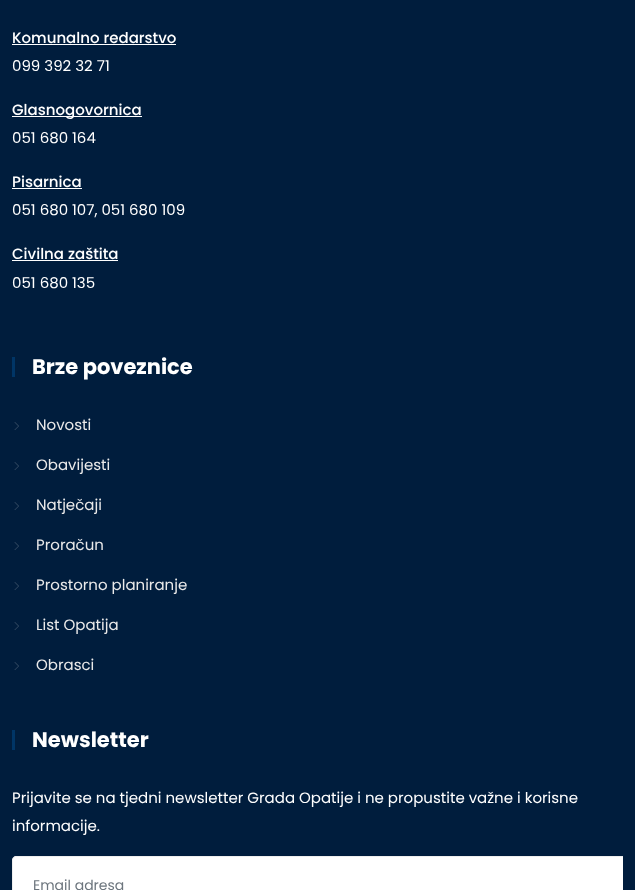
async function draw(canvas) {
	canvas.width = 635;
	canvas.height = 890;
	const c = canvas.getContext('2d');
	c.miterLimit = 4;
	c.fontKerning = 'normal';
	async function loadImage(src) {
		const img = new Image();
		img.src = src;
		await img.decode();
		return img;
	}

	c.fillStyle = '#001d3d';
	c.fillRect(0, 0, 635, 890);
	c.font = '500 15px Poppins';
	c.fillStyle = '#fff';
	c.fillText('Komunalno redarstvo', 12, 43);
	c.fillRect(12, 44, 164, 1);
	c.font = '15px Poppins';
	c.fillText('099 392 32 71', 12, 71);
	c.fillRect(12, 116, 130, 1);
	c.font = '500 15px Poppins';
	c.fillText('Glasnogovornica', 12, 115);
	c.font = '15px Poppins';
	c.fillText('051 680 164', 12, 143);
	c.font = '500 15px Poppins';
	c.fillText('Pisarnica', 12, 187);
	c.fillRect(12, 188, 70, 1);
	c.font = '15px Poppins';
	c.fillText('051 680 107, 051 680 109', 12, 215);
	c.font = '500 15px Poppins';
	c.fillText('Civilna zaštita', 12, 259);
	c.fillRect(12, 260, 106, 1);
	c.font = '15px Poppins';
	c.fillText('051 680 135', 12, 288);
	c.fillStyle = '#003566';
	c.fillRect(12, 357, 3, 20);
	c.font = 'bold 21px Poppins';
	c.fillStyle = '#fff';
	c.fillText('Brze poveznice', 32, 374);
	c.drawImage(await loadImage('img1.png'), 14, 422, 5, 8);
	c.font = '15px Poppins';
	c.fillStyle = '#eaeaea';
	c.fillText('Novosti', 36, 430);
	c.drawImage(await loadImage('img1.png'), 14, 462, 5, 8);
	c.fillText('Obavijesti', 36, 470);
	c.drawImage(await loadImage('img1.png'), 14, 502, 5, 8);
	c.fillText('Natječaji', 36, 510);
	c.drawImage(await loadImage('img1.png'), 14, 542, 5, 8);
	c.fillText('Proračun', 36, 550);
	c.drawImage(await loadImage('img1.png'), 14, 582, 5, 8);
	c.fillText('Prostorno planiranje', 36, 590);
	c.drawImage(await loadImage('img1.png'), 14, 622, 5, 8);
	c.fillText('List Opatija', 36, 630);
	c.drawImage(await loadImage('img1.png'), 14, 662, 5, 8);
	c.fillText('Obrasci', 36, 670);
	c.fillStyle = '#003566';
	c.fillRect(12, 730, 3, 20);
	c.font = 'bold 21px Poppins';
	c.fillStyle = '#fff';
	c.fillText('Newsletter', 32, 747);
	c.font = '15px Poppins';
	c.fillText('Prijavite se na tjedni newsletter Grada Opatije i ne propustite važne i korisne', 12, 803);
	c.fillText('informacije.', 12, 831);
	c.beginPath();
	c.roundRect(12, 856, 611, 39, 5);
	c.fill();
	c.beginPath();
	c.moveTo(16, 857);
	c.lineTo(623, 857);
	c.lineTo(623, 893);
	c.lineTo(16, 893);
	c.bezierCurveTo(14.5, 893, 13, 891.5, 13, 890);
	c.lineTo(13, 860);
	c.bezierCurveTo(13, 858.5, 14.5, 857, 16, 857);
	c.closePath();
	c.fill();
	c.fillStyle = '#eee';
	c.beginPath();
	c.moveTo(16, 856);
	c.lineTo(623, 856);
	c.lineTo(623, 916);
	c.lineTo(16, 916);
	c.bezierCurveTo(14, 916, 12, 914, 12, 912);
	c.lineTo(12, 860);
	c.bezierCurveTo(12, 858, 14, 856, 16, 856);
	c.closePath();
	c.moveTo(16, 857);
	c.lineTo(623, 857);
	c.lineTo(623, 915);
	c.lineTo(16, 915);
	c.bezierCurveTo(14, 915, 13, 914, 13, 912);
	c.lineTo(13, 860);
	c.bezierCurveTo(13, 858, 14, 857, 16, 857);
	c.closePath();
	c.fill('evenodd');
	c.font = '14px Poppins';
	c.fillStyle = '#6c757d';
	c.fillText('Email adresa', 33, 890);
}

draw(document.querySelector('canvas'));
